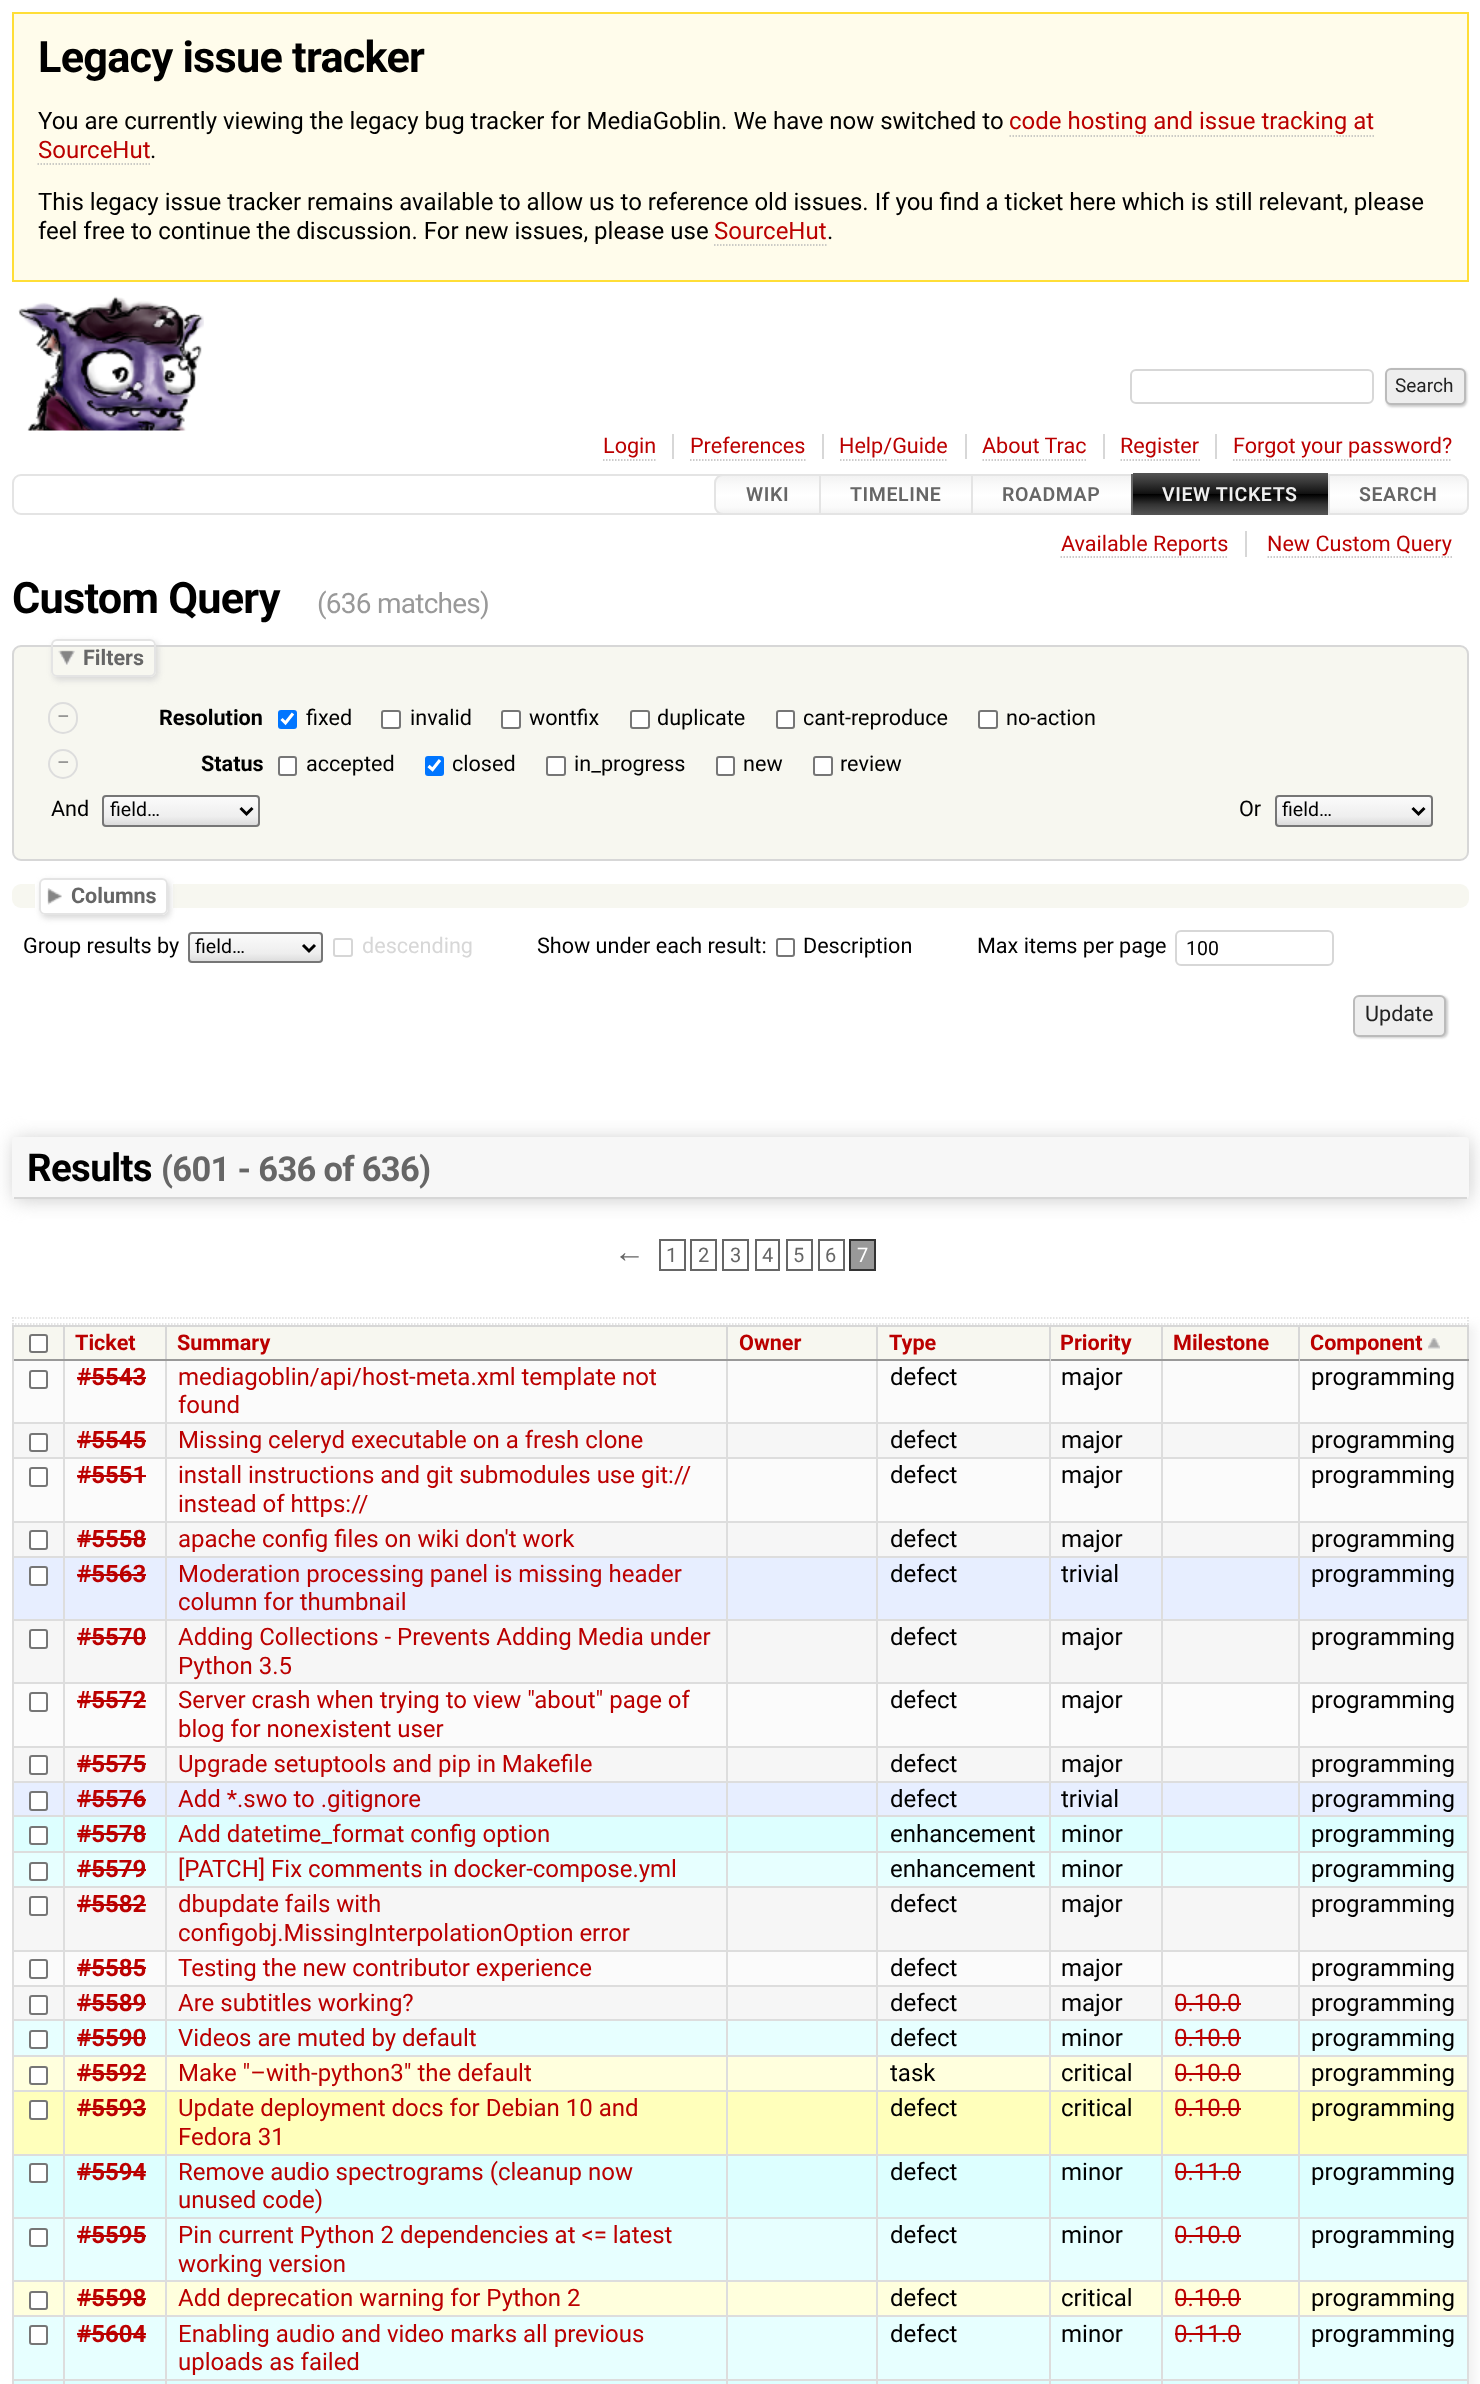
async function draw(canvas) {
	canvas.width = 1480;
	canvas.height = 2384;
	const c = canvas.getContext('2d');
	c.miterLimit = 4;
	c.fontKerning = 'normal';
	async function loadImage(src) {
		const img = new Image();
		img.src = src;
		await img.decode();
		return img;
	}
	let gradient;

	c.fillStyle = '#fff';
	c.fillRect(0, 0, 1480, 2384);
	c.fillStyle = '#fffceb';
	c.beginPath();
	c.rect(13, 13, 1455, 268);
	c.fill();
	c.strokeStyle = '#ffde37';
	c.lineWidth = 2;
	c.stroke();
	c.letterSpacing = '-0.75px';
	c.font = 'bold 43.25px Roboto';
	c.fillStyle = '#000';
	c.fillText('Legacy issue tracker', 38, 72);
	c.letterSpacing = '0px';
	c.font = '24px Roboto';
	c.fillText('You are currently viewing the legacy bug tracker for MediaGoblin. We have now switched to', 38, 129);
	c.fillStyle = '#b00';
	c.fillText('code hosting and issue tracking at', 1009, 129);
	c.beginPath();
	c.moveTo(1009.5, 136);
	c.lineTo(1374, 136);
	c.strokeStyle = '#bbb';
	c.lineWidth = 1.5;
	c.setLineDash([1.5, 1.5]);
	c.stroke();
	c.fillText('SourceHut', 38, 158);
	c.beginPath();
	c.moveTo(37.5, 164);
	c.lineTo(150, 164);
	c.stroke();
	c.fillStyle = '#000';
	for (const [text, x, y] of [
		['.', 150, 158],
		['This legacy issue tracker remains available to allow us to reference old issues. If you find a ticket here which is still relevant, please', 38, 210],
		['feel free to continue the discussion. For new issues, please use', 38, 239],
	]) {
		c.fillText(text, x, y);
	}
	c.fillStyle = '#b00';
	c.fillText('SourceHut', 714, 239);
	c.beginPath();
	c.moveTo(714, 245);
	c.lineTo(826.5, 245);
	c.stroke();
	c.fillStyle = '#000';
	c.fillText('.', 827, 239);
	c.drawImage(await loadImage('img1.png'), 18, 296, 186, 135);
	c.beginPath();
	c.roundRect(1131, 370, 242, 33, 5);
	c.strokeStyle = '#d7d7d7';
	c.lineWidth = 2;
	c.setLineDash([]);
	c.stroke();
	c.fillStyle = '#ccc';
	c.filter = 'blur(1px)';
	c.beginPath();
	c.roundRect(1386, 369, 81, 38, 6);
	c.fill();
	c.filter = 'none';
	c.fillStyle = '#eee';
	c.beginPath();
	c.roundRect(1386, 369, 79, 35, 5);
	c.fill();
	c.strokeStyle = '#bbb';
	c.stroke();
	c.font = '19px Roboto';
	c.fillStyle = '#222';
	c.fillText('Search', 1395, 392);
	c.fillStyle = '#d7d7d7';
	c.fillRect(672, 434, 2, 25);
	c.font = '21.6px Roboto';
	c.fillStyle = '#b00';
	c.fillText('Login', 603, 453);
	c.beginPath();
	c.moveTo(603, 460);
	c.lineTo(657, 460);
	c.lineWidth = 1.5;
	c.setLineDash([1.5, 1.5]);
	c.stroke();
	c.fillStyle = '#d7d7d7';
	c.fillRect(822, 434, 2, 25);
	c.fillStyle = '#b00';
	c.fillText('Preferences', 690, 453);
	c.beginPath();
	c.moveTo(690, 460);
	c.lineTo(805.5, 460);
	c.stroke();
	c.fillStyle = '#d7d7d7';
	c.fillRect(965, 434, 2, 25);
	c.fillStyle = '#b00';
	c.fillText('Help/Guide', 839, 453);
	c.beginPath();
	c.moveTo(840, 460);
	c.lineTo(948, 460);
	c.stroke();
	c.fillStyle = '#d7d7d7';
	c.fillRect(1103, 434, 2, 25);
	c.fillStyle = '#b00';
	c.fillText('About Trac', 982, 453);
	c.beginPath();
	c.moveTo(982.5, 460);
	c.lineTo(1086, 460);
	c.stroke();
	c.fillStyle = '#d7d7d7';
	c.fillRect(1215, 434, 2, 25);
	c.fillStyle = '#b00';
	c.fillText('Register', 1120, 453);
	c.beginPath();
	c.moveTo(1120.5, 460);
	c.lineTo(1200, 460);
	c.stroke();
	c.fillText('Forgot your password?', 1233, 453);
	c.beginPath();
	c.moveTo(1233, 460);
	c.lineTo(1452, 460);
	c.stroke();
	c.beginPath();
	c.roundRect(13, 475, 1455, 39, 8);
	c.strokeStyle = '#e4e4e4';
	c.lineWidth = 2;
	c.setLineDash([]);
	c.stroke();
	c.save();
	c.beginPath();
	c.roundRect(714, 474, 107, 41, [9, 0, 0, 9]);
	c.clip();
	gradient = c.createLinearGradient(767, 476, 767, 513);
	gradient.addColorStop(0, '#f2f2f2');
	gradient.addColorStop(0.25, '#fafafa');
	gradient.addColorStop(0.49, '#fefefe');
	gradient.addColorStop(0.51, '#fff');
	gradient.addColorStop(0.85, '#fafafa');
	gradient.addColorStop(1, '#f2f2f2');
	c.fillStyle = gradient;
	c.fillRect(714, 476, 105, 37);
	c.restore();
	c.beginPath();
	c.roundRect(715, 475, 105, 39, [8, 0, 0, 8]);
	c.stroke();
	c.letterSpacing = '0.6px';
	c.font = '600 19.5px Roboto';
	c.fillStyle = '#666';
	c.fillText('WIKI', 746, 501);
	gradient = c.createLinearGradient(896, 476, 896, 513);
	gradient.addColorStop(0, '#f2f2f2');
	gradient.addColorStop(0.25, '#fafafa');
	gradient.addColorStop(0.49, '#fefefe');
	gradient.addColorStop(0.51, '#fff');
	gradient.addColorStop(0.85, '#fafafa');
	gradient.addColorStop(1, '#f2f2f2');
	c.fillStyle = gradient;
	c.fillRect(821, 476, 150, 37);
	c.strokeRect(820, 475, 153, 39);
	c.fillStyle = '#666';
	c.fillText('TIMELINE', 850, 501);
	gradient = c.createLinearGradient(1052, 476, 1052, 513);
	gradient.addColorStop(0, '#f2f2f2');
	gradient.addColorStop(0.25, '#fafafa');
	gradient.addColorStop(0.49, '#fefefe');
	gradient.addColorStop(0.51, '#fff');
	gradient.addColorStop(0.85, '#fafafa');
	gradient.addColorStop(1, '#f2f2f2');
	c.fillStyle = gradient;
	c.fillRect(973, 476, 158, 37);
	c.strokeRect(972, 475, 160, 39);
	c.fillStyle = '#666';
	c.fillText('ROADMAP', 1002, 501);
	c.strokeStyle = '#666';
	c.strokeRect(1132, 475, 196, 39);
	gradient = c.createLinearGradient(1230, 473, 1230, 515);
	gradient.addColorStop(0, '#555');
	gradient.addColorStop(0.25, '#333');
	gradient.addColorStop(0.49, '#111');
	gradient.addColorStop(0.51, '#000');
	gradient.addColorStop(0.75, '#333');
	gradient.addColorStop(1, '#555');
	c.fillStyle = gradient;
	c.fillRect(1133, 473, 195, 42);
	c.fillStyle = '#eee';
	c.fillText('VIEW TICKETS', 1162, 501);
	c.save();
	c.beginPath();
	c.roundRect(1328, 474, 141, 41, [0, 9, 9, 0]);
	c.clip();
	gradient = c.createLinearGradient(1398, 476, 1398, 513);
	gradient.addColorStop(0, '#f2f2f2');
	gradient.addColorStop(0.25, '#fafafa');
	gradient.addColorStop(0.49, '#fefefe');
	gradient.addColorStop(0.51, '#fff');
	gradient.addColorStop(0.85, '#fafafa');
	gradient.addColorStop(1, '#f2f2f2');
	c.fillStyle = gradient;
	c.fillRect(1330, 476, 139, 37);
	c.restore();
	c.beginPath();
	c.roundRect(1329, 475, 139, 39, [0, 8, 8, 0]);
	c.strokeStyle = '#e4e4e4';
	c.stroke();
	c.fillStyle = '#666';
	c.fillText('SEARCH', 1359, 501);
	c.fillStyle = '#d7d7d7';
	c.fillRect(1245, 531, 2, 26);
	c.letterSpacing = '0px';
	c.font = '21.6px Roboto';
	c.fillStyle = '#b00';
	c.fillText('Available Reports', 1061, 551);
	c.beginPath();
	c.moveTo(1060.5, 557);
	c.lineTo(1228.5, 557);
	c.strokeStyle = '#bbb';
	c.lineWidth = 1.5;
	c.setLineDash([1.5, 1.5]);
	c.stroke();
	c.fillText('New Custom Query', 1267, 551);
	c.beginPath();
	c.moveTo(1267.5, 557);
	c.lineTo(1452, 557);
	c.stroke();
	c.letterSpacing = '-0.75px';
	c.font = 'bold 43.25px Roboto';
	c.fillStyle = '#000';
	c.fillText('Custom Query', 12, 613);
	c.font = '28px Roboto';
	c.fillStyle = '#999';
	c.fillText('(636 matches)', 317, 613);
	c.fillStyle = '#f7f7f0';
	c.beginPath();
	c.roundRect(13, 646, 1455, 214, 8);
	c.fill();
	c.strokeStyle = '#d7d7d7';
	c.lineWidth = 2;
	c.setLineDash([]);
	c.stroke();
	c.save();
	c.beginPath();
	c.moveTo(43, 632);
	c.lineTo(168, 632);
	c.lineTo(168, 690);
	c.lineTo(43, 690);
	c.closePath();
	c.moveTo(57, 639);
	c.lineTo(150, 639);
	c.bezierCurveTo(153.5, 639, 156, 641.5, 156, 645);
	c.lineTo(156, 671);
	c.bezierCurveTo(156, 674.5, 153.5, 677, 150, 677);
	c.lineTo(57, 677);
	c.bezierCurveTo(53.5, 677, 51, 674.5, 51, 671);
	c.lineTo(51, 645);
	c.bezierCurveTo(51, 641.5, 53.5, 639, 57, 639);
	c.closePath();
	c.clip('evenodd');
	c.fillStyle = '#d7d7d7';
	c.filter = 'blur(3px)';
	c.beginPath();
	c.roundRect(53, 642, 105, 38, 6);
	c.fill();
	c.filter = 'none';
	c.restore();
	c.drawImage(await loadImage('img2.png'), 58, 650, 17, 15);
	c.beginPath();
	c.roundRect(52, 640, 103, 36, 5);
	c.strokeStyle = '#e4e4e4';
	c.stroke();
	c.letterSpacing = '0px';
	c.font = 'bold 21.5px Roboto';
	c.fillStyle = '#666';
	c.fillText('Filters', 83, 665);
	c.beginPath();
	c.roundRect(49, 703, 28, 30, 14);
	c.strokeStyle = '#ddd';
	c.stroke();
	c.font = '19.5px Roboto';
	c.fillStyle = '#808080';
	c.fillText('–', 57, 723);
	c.font = 'bold 21.6px Roboto';
	c.fillStyle = '#000';
	c.fillText('Resolution', 159, 725);
	c.fillStyle = '#0075ff';
	c.beginPath();
	c.roundRect(278, 710, 19, 19, 3);
	c.fill();
	c.beginPath();
	c.moveTo(281.5, 719);
	c.lineTo(285.5, 723);
	c.lineTo(293, 713.5);
	c.strokeStyle = '#fff';
	c.lineWidth = 3.1;
	c.stroke();
	c.font = '21.6px Roboto';
	c.fillStyle = '#000';
	c.fillText('fixed', 306, 725);
	c.fillStyle = '#fff';
	c.beginPath();
	c.roundRect(382, 711, 18, 17, 2);
	c.fill();
	c.strokeStyle = '#767676';
	c.lineWidth = 2;
	c.stroke();
	c.fillStyle = '#000';
	c.fillText('invalid', 410, 725);
	c.fillStyle = '#fff';
	c.beginPath();
	c.roundRect(502, 711, 18, 17, 2);
	c.fill();
	c.stroke();
	c.fillStyle = '#000';
	c.fillText('wontfix', 529, 725);
	c.fillStyle = '#fff';
	c.beginPath();
	c.roundRect(631, 711, 18, 17, 2);
	c.fill();
	c.stroke();
	c.fillStyle = '#000';
	c.fillText('duplicate', 657, 725);
	c.fillStyle = '#fff';
	c.beginPath();
	c.roundRect(777, 711, 17, 17, 2);
	c.fill();
	c.stroke();
	c.fillStyle = '#000';
	c.fillText('cant-reproduce', 803, 725);
	c.fillStyle = '#fff';
	c.beginPath();
	c.roundRect(979, 711, 18, 17, 2);
	c.fill();
	c.stroke();
	c.fillStyle = '#000';
	c.fillText('no-action', 1006, 725);
	c.beginPath();
	c.arc(63, 764, 14, 0, 2 * Math.PI);
	c.strokeStyle = '#ddd';
	c.stroke();
	c.font = '19.5px Roboto';
	c.fillStyle = '#808080';
	c.fillText('–', 57, 769);
	c.font = 'bold 21.6px Roboto';
	c.fillStyle = '#000';
	c.fillText('Status', 201, 771);
	c.fillStyle = '#fff';
	c.beginPath();
	c.roundRect(279, 757, 17, 18, 2);
	c.fill();
	c.strokeStyle = '#767676';
	c.stroke();
	c.font = '21.6px Roboto';
	c.fillStyle = '#000';
	c.fillText('accepted', 306, 771);
	c.fillStyle = '#0075ff';
	c.beginPath();
	c.roundRect(425, 756, 19, 20, 3);
	c.fill();
	c.beginPath();
	c.moveTo(428.5, 766);
	c.lineTo(432.5, 769.5);
	c.lineTo(440, 760);
	c.strokeStyle = '#fff';
	c.lineWidth = 3.1;
	c.stroke();
	c.fillStyle = '#000';
	c.fillText('closed', 452, 771);
	c.fillStyle = '#fff';
	c.beginPath();
	c.roundRect(547, 757, 18, 18, 2);
	c.fill();
	c.strokeStyle = '#767676';
	c.lineWidth = 2;
	c.stroke();
	c.fillStyle = '#000';
	c.fillText('in_progress', 574, 771);
	c.fillStyle = '#fff';
	c.beginPath();
	c.roundRect(717, 757, 17, 18, 2);
	c.fill();
	c.stroke();
	c.fillStyle = '#000';
	c.fillText('new', 743, 771);
	c.fillStyle = '#fff';
	c.beginPath();
	c.roundRect(814, 757, 18, 18, 2);
	c.fill();
	c.stroke();
	c.fillStyle = '#000';
	c.fillText('review', 840, 771);
	c.fillText('And', 51, 816);
	c.save();
	c.beginPath();
	c.roundRect(102, 795, 158, 32, 4);
	c.clip();
	gradient = c.createLinearGradient(181, 825, 181, 797);
	gradient.addColorStop(0, '#dbdbdb');
	gradient.addColorStop(0.3, '#eee');
	gradient.addColorStop(1, '#fbfbfb');
	c.fillStyle = gradient;
	c.fillRect(102, 797, 158, 28);
	c.restore();
	c.beginPath();
	c.roundRect(103, 796, 156, 30, 3);
	c.stroke();
	c.beginPath();
	c.moveTo(240.5, 808);
	c.lineTo(246.5, 814);
	c.lineTo(252.5, 808);
	c.strokeStyle = '#000';
	c.lineWidth = 3;
	c.stroke();
	c.font = '19.5px Roboto';
	c.fillText('field…', 110, 816);
	c.font = '21.6px Roboto';
	c.fillText('Or', 1239, 816);
	c.save();
	c.beginPath();
	c.roundRect(1275, 795, 158, 32, 4);
	c.clip();
	gradient = c.createLinearGradient(1354, 825, 1354, 797);
	gradient.addColorStop(0, '#dbdbdb');
	gradient.addColorStop(0.3, '#eee');
	gradient.addColorStop(1, '#fbfbfb');
	c.fillStyle = gradient;
	c.fillRect(1275, 797, 158, 28);
	c.restore();
	c.beginPath();
	c.roundRect(1276, 796, 156, 30, 3);
	c.strokeStyle = '#767676';
	c.lineWidth = 2;
	c.stroke();
	c.beginPath();
	c.moveTo(1412.5, 808);
	c.lineTo(1418.5, 814);
	c.lineTo(1424.5, 808);
	c.strokeStyle = '#000';
	c.lineWidth = 3;
	c.stroke();
	c.font = '19.5px Roboto';
	c.fillText('field…', 1282, 816);
	c.fillStyle = '#f7f7f0';
	c.beginPath();
	c.roundRect(12, 884, 1457, 24, 9);
	c.fill();
	c.fillStyle = '#fff';
	c.fillRect(35, 884, 138, 24);
	c.save();
	c.beginPath();
	c.moveTo(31, 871);
	c.lineTo(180, 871);
	c.lineTo(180, 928);
	c.lineTo(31, 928);
	c.closePath();
	c.moveTo(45, 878);
	c.lineTo(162, 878);
	c.bezierCurveTo(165.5, 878, 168, 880.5, 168, 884);
	c.lineTo(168, 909);
	c.bezierCurveTo(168, 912.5, 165.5, 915, 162, 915);
	c.lineTo(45, 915);
	c.bezierCurveTo(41.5, 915, 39, 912.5, 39, 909);
	c.lineTo(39, 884);
	c.bezierCurveTo(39, 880.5, 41.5, 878, 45, 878);
	c.closePath();
	c.clip('evenodd');
	c.fillStyle = '#d7d7d7';
	c.filter = 'blur(3px)';
	c.beginPath();
	c.roundRect(41, 881, 129, 37, 6);
	c.fill();
	c.filter = 'none';
	c.restore();
	c.drawImage(await loadImage('img3.png'), 47, 888, 15, 17);
	c.beginPath();
	c.roundRect(40, 879, 127, 35, 5);
	c.strokeStyle = '#e4e4e4';
	c.lineWidth = 2;
	c.stroke();
	c.font = 'bold 21.5px Roboto';
	c.fillStyle = '#666';
	c.fillText('Columns', 71, 903);
	c.font = '21.6px Roboto';
	c.fillStyle = '#000';
	c.fillText('Group results by', 23, 953);
	c.save();
	c.beginPath();
	c.roundRect(188, 932, 135, 31, 4);
	c.clip();
	gradient = c.createLinearGradient(255, 962, 255, 933);
	gradient.addColorStop(0, '#dbdbdb');
	gradient.addColorStop(0.3, '#eee');
	gradient.addColorStop(1, '#fbfbfb');
	c.fillStyle = gradient;
	c.fillRect(188, 933, 135, 29);
	c.restore();
	c.beginPath();
	c.roundRect(189, 933, 133, 29, 3);
	c.strokeStyle = '#767676';
	c.stroke();
	c.beginPath();
	c.moveTo(303, 945);
	c.lineTo(309, 951);
	c.lineTo(315, 945);
	c.strokeStyle = '#000';
	c.lineWidth = 3;
	c.stroke();
	c.font = '19.5px Roboto';
	c.fillText('field…', 195, 953);
	c.beginPath();
	c.roundRect(334, 939, 18, 17, 2);
	c.strokeStyle = '#d6d6d6';
	c.lineWidth = 2;
	c.stroke();
	c.font = '21.6px Roboto';
	c.fillStyle = '#d7d7d7';
	c.fillText('descending', 362, 953);
	c.fillStyle = '#000';
	c.fillText('Show under each result:', 537, 953);
	c.beginPath();
	c.roundRect(777, 939, 17, 17, 2);
	c.strokeStyle = '#767676';
	c.stroke();
	c.fillText('Description', 803, 953);
	c.fillText('Max items per page', 977, 953);
	c.beginPath();
	c.roundRect(1176, 931, 157, 34, 5);
	c.strokeStyle = '#d7d7d7';
	c.stroke();
	c.font = '19.5px Roboto';
	c.fillText('100', 1186, 955);
	c.fillStyle = '#ccc';
	c.filter = 'blur(1px)';
	c.beginPath();
	c.roundRect(1355, 996, 93, 42, 6);
	c.fill();
	c.filter = 'none';
	c.fillStyle = '#eee';
	c.beginPath();
	c.roundRect(1354, 996, 91, 40, 5);
	c.fill();
	c.strokeStyle = '#bbb';
	c.stroke();
	c.font = '21.6px Roboto';
	c.fillStyle = '#222';
	c.fillText('Update', 1365, 1021);
	c.fillStyle = '#ccc';
	c.filter = 'blur(9.5px)';
	c.beginPath();
	c.roundRect(14, 1139, 1456, 61, 4);
	c.fill();
	c.filter = 'none';
	c.fillStyle = '#f7f7f7';
	c.beginPath();
	c.roundRect(12, 1137, 1457, 62, 4);
	c.fill();
	c.fillStyle = '#d7d7d7';
	c.fillRect(14, 1197, 1453, 2);
	c.letterSpacing = '-0.7px';
	c.font = 'bold 38.5px Roboto';
	c.fillStyle = '#000';
	c.fillText('Results', 27, 1181);
	c.font = 'bold 34.5px Roboto';
	c.fillStyle = '#666';
	c.fillText('(601 - 636 of 636)', 161, 1181);
	c.letterSpacing = '0px';
	c.font = 'bold 31px Liberation Sans';
	c.fillText('←', 614, 1262);
	c.strokeStyle = '#666';
	c.strokeRect(660, 1240, 25, 30);
	c.font = '20px Roboto';
	c.fillText('1', 666, 1262);
	c.strokeRect(691, 1240, 25, 30);
	c.fillText('2', 698, 1262);
	c.strokeRect(723, 1240, 25, 30);
	c.fillText('3', 730, 1262);
	c.strokeRect(756, 1240, 23, 30);
	c.fillText('4', 762, 1262);
	c.strokeRect(787, 1240, 25, 30);
	c.fillText('5', 793, 1262);
	c.strokeRect(819, 1240, 25, 30);
	c.fillText('6', 825, 1262);
	c.fillStyle = '#999';
	c.beginPath();
	c.rect(850, 1240, 25, 30);
	c.fill();
	c.strokeStyle = '#333';
	c.stroke();
	c.fillStyle = '#fff';
	c.fillText('7', 857, 1262);
	c.save();
	c.beginPath();
	c.moveTo(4, 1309);
	c.lineTo(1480, 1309);
	c.lineTo(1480, 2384);
	c.lineTo(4, 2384);
	c.closePath();
	c.moveTo(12, 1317);
	c.lineTo(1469, 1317);
	c.lineTo(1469, 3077);
	c.lineTo(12, 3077);
	c.closePath();
	c.clip('evenodd');
	c.fillStyle = '#f2f2f2';
	c.filter = 'blur(5px)';
	c.beginPath();
	c.rect(20, 1325, 1456, 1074);
	c.fill();
	c.filter = 'none';
	c.restore();
	c.beginPath();
	c.moveTo(12, 1318);
	c.lineTo(1468.5, 1318);
	c.strokeStyle = '#ddd';
	c.lineWidth = 1.5;
	c.setLineDash([1.5, 1.5]);
	c.stroke();
	c.beginPath();
	c.moveTo(1468, 1317);
	c.lineTo(1468, 1318.5);
	c.moveTo(1468, 1320);
	c.lineTo(1468, 1321.5);
	c.moveTo(1468, 1323);
	c.lineTo(1468, 1324.5);
	c.setLineDash([]);
	c.stroke();
	c.beginPath();
	c.moveTo(12, 1324);
	c.lineTo(1468.5, 1324);
	c.setLineDash([1.5, 1.5]);
	c.stroke();
	c.beginPath();
	c.moveTo(13, 1317);
	c.lineTo(13, 1318.5);
	c.moveTo(13, 1320);
	c.lineTo(13, 1321.5);
	c.moveTo(13, 1323);
	c.lineTo(13, 1324.5);
	c.setLineDash([]);
	c.stroke();
	for (const [x, y, w, h, color] of [
		[14, 1327, 1453, 32, '#f7f7f0'],
		[1298, 1325, 171, 2, '#d7d7d7'],
		[12, 1422, 1457, 2, '#ddd'],
		[12, 1521, 1457, 2, '#ddd'],
		[1298, 1457, 171, 2, '#ddd'],
		[1298, 1556, 171, 2, '#ddd'],
		[1298, 1619, 171, 2, '#ddd'],
		[1298, 1682, 171, 2, '#ddd'],
		[12, 1746, 1457, 2, '#ddd'],
		[1298, 1781, 171, 2, '#ddd'],
		[1298, 1815, 171, 2, '#ddd'],
		[1298, 1851, 171, 2, '#ddd'],
		[1298, 1886, 171, 2, '#ddd'],
		[1298, 1950, 171, 2, '#ddd'],
		[12, 1985, 1457, 2, '#ddd'],
		[1298, 2019, 171, 2, '#ddd'],
		[1298, 2055, 171, 2, '#ddd'],
		[1298, 2090, 171, 2, '#ddd'],
		[1298, 2154, 171, 2, '#ddd'],
		[1298, 2217, 171, 2, '#ddd'],
		[1298, 2280, 171, 2, '#ddd'],
		[1298, 2315, 171, 2, '#ddd'],
		[1298, 2379, 171, 2, '#ddd'],
		[14, 2381, 1455, 3, '#dff'],
		[1467, 2379, 2, 5, '#ddd'],
		[1467, 2315, 2, 66, '#ddd'],
		[1467, 2280, 2, 36, '#ddd'],
		[1467, 2217, 2, 65, '#ddd'],
		[1467, 2154, 2, 65, '#ddd'],
		[1467, 2090, 2, 66, '#ddd'],
		[1467, 2055, 2, 36, '#ddd'],
		[1467, 1985, 2, 72, '#ddd'],
		[1467, 1950, 2, 36, '#ddd'],
		[1467, 1886, 2, 66, '#ddd'],
		[1467, 1851, 2, 36, '#ddd'],
		[1467, 1815, 2, 38, '#ddd'],
		[1467, 1746, 2, 71, '#ddd'],
		[1467, 1682, 2, 66, '#ddd'],
		[1467, 1619, 2, 64, '#ddd'],
		[1467, 1521, 2, 99, '#ddd'],
		[1467, 1359, 2, 164, '#ddd'],
		[1467, 1325, 2, 36, '#d7d7d7'],
		[14, 1361, 1453, 61, '#fbfbfb'],
		[14, 1424, 1453, 33, '#f6f6f6'],
		[14, 1459, 1453, 62, '#fbfbfb'],
		[14, 1523, 1453, 33, '#f6f6f6'],
		[14, 1558, 1453, 61, '#e7eeff'],
		[14, 1621, 1453, 61, '#f6f6f6'],
		[14, 1684, 1453, 62, '#fbfbfb'],
		[14, 1748, 1453, 33, '#f6f6f6'],
		[14, 1783, 1453, 32, '#e7eeff'],
		[14, 1817, 1453, 34, '#dff'],
		[14, 1853, 1453, 33, '#e7ffff'],
		[14, 1888, 1453, 62, '#f6f6f6'],
		[14, 1952, 1453, 33, '#fbfbfb'],
		[14, 1987, 1453, 32, '#f6f6f6'],
		[14, 2021, 1453, 34, '#e7ffff'],
		[14, 2057, 1453, 33, '#ffd'],
		[14, 2092, 1453, 62, '#ffb'],
		[14, 2156, 1453, 61, '#dff'],
		[14, 2219, 1453, 61, '#e7ffff'],
		[14, 2282, 1453, 33, '#ffd'],
		[14, 2317, 1453, 62, '#e7ffff'],
		[1298, 2379, 2, 5, '#ddd'],
		[1161, 2379, 138, 2, '#ddd'],
		[1298, 2315, 2, 66, '#ddd'],
		[1161, 2315, 138, 2, '#ddd'],
		[1298, 2280, 2, 36, '#ddd'],
		[1161, 2280, 138, 2, '#ddd'],
		[1298, 2217, 2, 65, '#ddd'],
		[1161, 2217, 138, 2, '#ddd'],
		[1298, 2154, 2, 65, '#ddd'],
		[1161, 2154, 138, 2, '#ddd'],
		[1298, 2090, 2, 66, '#ddd'],
		[1161, 2090, 138, 2, '#ddd'],
		[1298, 2055, 2, 36, '#ddd'],
		[1161, 2055, 138, 2, '#ddd'],
		[1298, 2019, 2, 38, '#ddd'],
		[1161, 2019, 138, 2, '#ddd'],
		[1298, 1985, 2, 36, '#ddd'],
		[1298, 1950, 2, 36, '#ddd'],
		[1161, 1950, 138, 2, '#ddd'],
		[1298, 1886, 2, 66, '#ddd'],
		[1161, 1886, 138, 2, '#ddd'],
		[1298, 1851, 2, 36, '#ddd'],
		[1161, 1851, 138, 2, '#ddd'],
		[1298, 1815, 2, 38, '#ddd'],
		[1161, 1815, 138, 2, '#ddd'],
		[1298, 1781, 2, 36, '#ddd'],
		[1161, 1781, 138, 2, '#ddd'],
		[1298, 1746, 2, 36, '#ddd'],
		[1298, 1682, 2, 66, '#ddd'],
		[1161, 1682, 138, 2, '#ddd'],
		[1298, 1619, 2, 64, '#ddd'],
		[1161, 1619, 138, 2, '#ddd'],
		[1298, 1556, 2, 64, '#ddd'],
		[1161, 1556, 138, 2, '#ddd'],
		[1298, 1521, 2, 36, '#ddd'],
		[1298, 1457, 2, 66, '#ddd'],
		[1161, 1457, 138, 2, '#ddd'],
		[1298, 1359, 2, 99, '#ddd'],
		[1298, 1359, 171, 2, '#999'],
		[1298, 1325, 2, 36, '#d7d7d7'],
		[1161, 1325, 138, 2, '#d7d7d7'],
		[1161, 2379, 2, 5, '#ddd'],
		[1049, 2379, 114, 2, '#ddd'],
		[1161, 2315, 2, 66, '#ddd'],
		[1049, 2315, 114, 2, '#ddd'],
		[1161, 2280, 2, 36, '#ddd'],
		[1049, 2280, 114, 2, '#ddd'],
		[1161, 2217, 2, 65, '#ddd'],
		[1049, 2217, 114, 2, '#ddd'],
		[1161, 2154, 2, 65, '#ddd'],
		[1049, 2154, 114, 2, '#ddd'],
		[1161, 2090, 2, 66, '#ddd'],
		[1049, 2090, 114, 2, '#ddd'],
		[1161, 2055, 2, 36, '#ddd'],
		[1049, 2055, 114, 2, '#ddd'],
		[1161, 2019, 2, 38, '#ddd'],
		[1049, 2019, 114, 2, '#ddd'],
		[1161, 1985, 2, 36, '#ddd'],
		[1161, 1950, 2, 36, '#ddd'],
		[1049, 1950, 114, 2, '#ddd'],
		[1161, 1886, 2, 66, '#ddd'],
		[1049, 1886, 114, 2, '#ddd'],
		[1161, 1851, 2, 36, '#ddd'],
		[1049, 1851, 114, 2, '#ddd'],
		[1161, 1815, 2, 38, '#ddd'],
		[1049, 1815, 114, 2, '#ddd'],
		[1161, 1781, 2, 36, '#ddd'],
		[1049, 1781, 114, 2, '#ddd'],
		[1161, 1746, 2, 36, '#ddd'],
		[1161, 1682, 2, 66, '#ddd'],
		[1049, 1682, 114, 2, '#ddd'],
		[1161, 1619, 2, 64, '#ddd'],
		[1049, 1619, 114, 2, '#ddd'],
		[1161, 1556, 2, 64, '#ddd'],
		[1049, 1556, 114, 2, '#ddd'],
		[1161, 1521, 2, 36, '#ddd'],
		[1161, 1457, 2, 66, '#ddd'],
		[1049, 1457, 114, 2, '#ddd'],
		[1161, 1359, 2, 99, '#ddd'],
		[1161, 1359, 138, 2, '#999'],
		[1161, 1325, 2, 36, '#d7d7d7'],
		[1049, 1325, 114, 2, '#d7d7d7'],
		[1049, 2379, 2, 5, '#ddd'],
		[876, 2379, 174, 2, '#ddd'],
		[1049, 2315, 2, 66, '#ddd'],
		[876, 2315, 174, 2, '#ddd'],
		[1049, 2280, 2, 36, '#ddd'],
		[876, 2280, 174, 2, '#ddd'],
		[1049, 2217, 2, 65, '#ddd'],
		[876, 2217, 174, 2, '#ddd'],
		[1049, 2154, 2, 65, '#ddd'],
		[876, 2154, 174, 2, '#ddd'],
		[1049, 2090, 2, 66, '#ddd'],
		[876, 2090, 174, 2, '#ddd'],
		[1049, 2055, 2, 36, '#ddd'],
		[876, 2055, 174, 2, '#ddd'],
		[1049, 2019, 2, 38, '#ddd'],
		[876, 2019, 174, 2, '#ddd'],
		[1049, 1985, 2, 36, '#ddd'],
		[1049, 1950, 2, 36, '#ddd'],
		[876, 1950, 174, 2, '#ddd'],
		[1049, 1886, 2, 66, '#ddd'],
		[876, 1886, 174, 2, '#ddd'],
		[1049, 1851, 2, 36, '#ddd'],
		[876, 1851, 174, 2, '#ddd'],
		[1049, 1815, 2, 38, '#ddd'],
		[876, 1815, 174, 2, '#ddd'],
		[1049, 1781, 2, 36, '#ddd'],
		[876, 1781, 174, 2, '#ddd'],
		[1049, 1746, 2, 36, '#ddd'],
		[1049, 1682, 2, 66, '#ddd'],
		[876, 1682, 174, 2, '#ddd'],
		[1049, 1619, 2, 64, '#ddd'],
		[876, 1619, 174, 2, '#ddd'],
		[1049, 1556, 2, 64, '#ddd'],
		[876, 1556, 174, 2, '#ddd'],
		[1049, 1521, 2, 36, '#ddd'],
		[1049, 1457, 2, 66, '#ddd'],
		[876, 1457, 174, 2, '#ddd'],
		[1049, 1359, 2, 99, '#ddd'],
		[1049, 1359, 114, 2, '#999'],
		[1049, 1325, 2, 36, '#d7d7d7'],
		[876, 1325, 174, 2, '#d7d7d7'],
		[876, 2379, 2, 5, '#ddd'],
		[726, 2379, 152, 2, '#ddd'],
		[876, 2315, 2, 66, '#ddd'],
		[726, 2315, 152, 2, '#ddd'],
		[876, 2280, 2, 36, '#ddd'],
		[726, 2280, 152, 2, '#ddd'],
		[876, 2217, 2, 65, '#ddd'],
		[726, 2217, 152, 2, '#ddd'],
		[876, 2154, 2, 65, '#ddd'],
		[726, 2154, 152, 2, '#ddd'],
		[876, 2090, 2, 66, '#ddd'],
		[726, 2090, 152, 2, '#ddd'],
		[876, 2055, 2, 36, '#ddd'],
		[726, 2055, 152, 2, '#ddd'],
		[876, 2019, 2, 38, '#ddd'],
		[726, 2019, 152, 2, '#ddd'],
		[876, 1985, 2, 36, '#ddd'],
		[876, 1950, 2, 36, '#ddd'],
		[726, 1950, 152, 2, '#ddd'],
		[876, 1886, 2, 66, '#ddd'],
		[726, 1886, 152, 2, '#ddd'],
		[876, 1851, 2, 36, '#ddd'],
		[726, 1851, 152, 2, '#ddd'],
		[876, 1815, 2, 38, '#ddd'],
		[726, 1815, 152, 2, '#ddd'],
		[876, 1781, 2, 36, '#ddd'],
		[726, 1781, 152, 2, '#ddd'],
		[876, 1746, 2, 36, '#ddd'],
		[876, 1682, 2, 66, '#ddd'],
		[726, 1682, 152, 2, '#ddd'],
		[876, 1619, 2, 64, '#ddd'],
		[726, 1619, 152, 2, '#ddd'],
		[876, 1556, 2, 64, '#ddd'],
		[726, 1556, 152, 2, '#ddd'],
		[876, 1521, 2, 36, '#ddd'],
		[876, 1457, 2, 66, '#ddd'],
		[726, 1457, 152, 2, '#ddd'],
		[876, 1359, 2, 99, '#ddd'],
		[876, 1359, 174, 2, '#999'],
		[876, 1325, 2, 36, '#d7d7d7'],
		[726, 1325, 152, 2, '#d7d7d7'],
		[726, 2379, 2, 5, '#ddd'],
		[165, 2379, 563, 2, '#ddd'],
		[726, 2315, 2, 66, '#ddd'],
		[165, 2315, 563, 2, '#ddd'],
		[726, 2280, 2, 36, '#ddd'],
		[165, 2280, 563, 2, '#ddd'],
		[726, 2217, 2, 65, '#ddd'],
		[165, 2217, 563, 2, '#ddd'],
		[726, 2154, 2, 65, '#ddd'],
		[165, 2154, 563, 2, '#ddd'],
		[726, 2090, 2, 66, '#ddd'],
		[165, 2090, 563, 2, '#ddd'],
		[726, 2055, 2, 36, '#ddd'],
		[165, 2055, 563, 2, '#ddd'],
		[726, 2019, 2, 38, '#ddd'],
		[165, 2019, 563, 2, '#ddd'],
		[726, 1985, 2, 36, '#ddd'],
		[726, 1950, 2, 36, '#ddd'],
		[165, 1950, 563, 2, '#ddd'],
		[726, 1886, 2, 66, '#ddd'],
		[165, 1886, 563, 2, '#ddd'],
		[726, 1851, 2, 36, '#ddd'],
		[165, 1851, 563, 2, '#ddd'],
		[726, 1815, 2, 38, '#ddd'],
		[165, 1815, 563, 2, '#ddd'],
		[726, 1781, 2, 36, '#ddd'],
		[165, 1781, 563, 2, '#ddd'],
		[726, 1746, 2, 36, '#ddd'],
		[726, 1682, 2, 66, '#ddd'],
		[165, 1682, 563, 2, '#ddd'],
		[726, 1619, 2, 64, '#ddd'],
		[165, 1619, 563, 2, '#ddd'],
		[726, 1556, 2, 64, '#ddd'],
		[165, 1556, 563, 2, '#ddd'],
		[726, 1521, 2, 36, '#ddd'],
		[726, 1457, 2, 66, '#ddd'],
		[165, 1457, 563, 2, '#ddd'],
		[726, 1359, 2, 99, '#ddd'],
		[726, 1359, 152, 2, '#999'],
		[726, 1325, 2, 36, '#d7d7d7'],
		[165, 1325, 563, 2, '#d7d7d7'],
		[165, 2379, 2, 5, '#ddd'],
		[63, 2379, 104, 2, '#ddd'],
		[165, 2315, 2, 66, '#ddd'],
		[63, 2315, 104, 2, '#ddd'],
		[165, 2280, 2, 36, '#ddd'],
		[63, 2280, 104, 2, '#ddd'],
		[165, 2217, 2, 65, '#ddd'],
		[63, 2217, 104, 2, '#ddd'],
		[165, 2154, 2, 65, '#ddd'],
		[63, 2154, 104, 2, '#ddd'],
		[165, 2090, 2, 66, '#ddd'],
		[63, 2090, 104, 2, '#ddd'],
		[165, 2055, 2, 36, '#ddd'],
		[63, 2055, 104, 2, '#ddd'],
		[165, 2019, 2, 38, '#ddd'],
		[63, 2019, 104, 2, '#ddd'],
		[165, 1985, 2, 36, '#ddd'],
		[165, 1950, 2, 36, '#ddd'],
		[63, 1950, 104, 2, '#ddd'],
		[165, 1886, 2, 66, '#ddd'],
		[63, 1886, 104, 2, '#ddd'],
		[165, 1851, 2, 36, '#ddd'],
		[63, 1851, 104, 2, '#ddd'],
		[165, 1815, 2, 38, '#ddd'],
		[63, 1815, 104, 2, '#ddd'],
		[165, 1781, 2, 36, '#ddd'],
		[63, 1781, 104, 2, '#ddd'],
		[165, 1746, 2, 36, '#ddd'],
		[165, 1682, 2, 66, '#ddd'],
		[63, 1682, 104, 2, '#ddd'],
		[165, 1619, 2, 64, '#ddd'],
		[63, 1619, 104, 2, '#ddd'],
		[165, 1556, 2, 64, '#ddd'],
		[63, 1556, 104, 2, '#ddd'],
		[165, 1521, 2, 36, '#ddd'],
		[165, 1457, 2, 66, '#ddd'],
		[63, 1457, 104, 2, '#ddd'],
		[165, 1359, 2, 99, '#ddd'],
		[165, 1359, 563, 2, '#999'],
		[165, 1325, 2, 36, '#d7d7d7'],
		[63, 1325, 104, 2, '#d7d7d7'],
		[63, 2379, 2, 5, '#ddd'],
		[12, 2379, 53, 2, '#ddd'],
		[63, 2315, 2, 66, '#ddd'],
		[12, 2315, 53, 2, '#ddd'],
		[63, 2280, 2, 36, '#ddd'],
		[12, 2280, 53, 2, '#ddd'],
		[63, 2217, 2, 65, '#ddd'],
		[12, 2217, 53, 2, '#ddd'],
		[63, 2154, 2, 65, '#ddd'],
		[12, 2154, 53, 2, '#ddd'],
		[63, 2090, 2, 66, '#ddd'],
		[12, 2090, 53, 2, '#ddd'],
		[63, 2055, 2, 36, '#ddd'],
		[12, 2055, 53, 2, '#ddd'],
		[63, 2019, 2, 38, '#ddd'],
		[12, 2019, 53, 2, '#ddd'],
		[63, 1985, 2, 36, '#ddd'],
		[63, 1950, 2, 36, '#ddd'],
		[12, 1950, 53, 2, '#ddd'],
		[63, 1886, 2, 66, '#ddd'],
		[12, 1886, 53, 2, '#ddd'],
		[63, 1851, 2, 36, '#ddd'],
		[12, 1851, 53, 2, '#ddd'],
		[63, 1815, 2, 38, '#ddd'],
		[12, 1815, 53, 2, '#ddd'],
		[63, 1781, 2, 36, '#ddd'],
		[12, 1781, 53, 2, '#ddd'],
		[63, 1746, 2, 36, '#ddd'],
		[63, 1682, 2, 66, '#ddd'],
		[12, 1682, 53, 2, '#ddd'],
		[63, 1619, 2, 64, '#ddd'],
		[12, 1619, 53, 2, '#ddd'],
		[63, 1556, 2, 64, '#ddd'],
		[12, 1556, 53, 2, '#ddd'],
		[63, 1521, 2, 36, '#ddd'],
		[63, 1457, 2, 66, '#ddd'],
		[12, 1457, 53, 2, '#ddd'],
		[63, 1359, 2, 99, '#ddd'],
		[63, 1359, 104, 2, '#999'],
		[63, 1325, 2, 36, '#d7d7d7'],
		[12, 1325, 53, 2, '#d7d7d7'],
		[12, 2379, 2, 5, '#ddd'],
		[12, 2315, 2, 66, '#ddd'],
		[12, 2280, 2, 36, '#ddd'],
		[12, 2217, 2, 65, '#ddd'],
		[12, 2154, 2, 65, '#ddd'],
		[12, 2090, 2, 66, '#ddd'],
		[12, 2055, 2, 36, '#ddd'],
		[12, 1985, 2, 72, '#ddd'],
		[12, 1950, 2, 36, '#ddd'],
		[12, 1886, 2, 66, '#ddd'],
		[12, 1851, 2, 36, '#ddd'],
		[12, 1815, 2, 38, '#ddd'],
		[12, 1746, 2, 71, '#ddd'],
		[12, 1682, 2, 66, '#ddd'],
		[12, 1619, 2, 64, '#ddd'],
		[12, 1521, 2, 99, '#ddd'],
		[12, 1359, 2, 164, '#ddd'],
		[12, 1359, 53, 2, '#999'],
		[12, 1325, 2, 36, '#d7d7d7'],
	]) {
		c.fillStyle = color;
		c.fillRect(x, y, w, h);
	}
	c.fillStyle = '#fff';
	c.beginPath();
	c.roundRect(30, 1335, 17, 17, 2);
	c.fill();
	c.strokeStyle = '#767676';
	c.lineWidth = 2;
	c.stroke();
	c.font = 'bold 21.6px Roboto';
	c.fillStyle = '#b00';
	for (const [text, x, y] of [
		['Ticket', 75, 1350],
		['Summary', 177, 1350],
		['Owner', 739, 1350],
		['Type', 889, 1350],
		['Priority', 1060, 1350],
		['Milestone', 1173, 1350],
		['Component', 1310, 1350],
	]) {
		c.fillText(text, x, y);
	}
	c.drawImage(await loadImage('img4.png'), 1428, 1338, 12, 11);
	c.fillStyle = '#fff';
	c.beginPath();
	c.roundRect(30, 1371, 17, 17, 2);
	c.fill();
	c.stroke();
	c.font = 'bold 24px Roboto';
	c.fillStyle = '#b00';
	c.fillText('#5543', 77, 1385);
	c.fillRect(77, 1377, 69, 2);
	c.font = '24px Roboto';
	c.fillText('mediagoblin/api/host-meta.xml template not', 178, 1385);
	c.fillText('found', 178, 1413);
	c.fillStyle = '#000';
	for (const [text, x, y] of [
		['defect', 890, 1385],
		['major', 1061, 1385],
		['programming', 1311, 1385],
	]) {
		c.fillText(text, x, y);
	}
	c.fillStyle = '#fff';
	c.beginPath();
	c.roundRect(30, 1434, 17, 17, 2);
	c.fill();
	c.stroke();
	c.font = 'bold 24px Roboto';
	c.fillStyle = '#b00';
	c.fillText('#5545', 77, 1448);
	c.fillRect(77, 1440, 69, 2);
	c.font = '24px Roboto';
	c.fillText('Missing celeryd executable on a fresh clone', 178, 1448);
	c.fillStyle = '#000';
	for (const [text, x, y] of [
		['defect', 890, 1448],
		['major', 1061, 1448],
		['programming', 1311, 1448],
	]) {
		c.fillText(text, x, y);
	}
	c.fillStyle = '#fff';
	c.beginPath();
	c.roundRect(30, 1468, 17, 18, 2);
	c.fill();
	c.stroke();
	c.font = 'bold 24px Roboto';
	c.fillStyle = '#b00';
	c.fillText('#5551', 77, 1483);
	c.fillRect(77, 1475, 69, 2);
	c.font = '24px Roboto';
	c.fillText('install instructions and git submodules use git://', 178, 1483);
	c.fillText('instead of https://', 178, 1512);
	c.fillStyle = '#000';
	for (const [text, x, y] of [
		['defect', 890, 1483],
		['major', 1061, 1483],
		['programming', 1311, 1483],
	]) {
		c.fillText(text, x, y);
	}
	c.fillStyle = '#fff';
	c.beginPath();
	c.roundRect(30, 1531, 17, 18, 2);
	c.fill();
	c.stroke();
	c.font = 'bold 24px Roboto';
	c.fillStyle = '#b00';
	c.fillText('#5558', 77, 1547);
	c.fillRect(77, 1538, 69, 2);
	c.font = '24px Roboto';
	c.fillText('apache config files on wiki don\'t work', 178, 1547);
	c.fillStyle = '#000';
	for (const [text, x, y] of [
		['defect', 890, 1547],
		['major', 1061, 1547],
		['programming', 1311, 1547],
	]) {
		c.fillText(text, x, y);
	}
	c.fillStyle = '#fff';
	c.beginPath();
	c.roundRect(30, 1567, 17, 18, 2);
	c.fill();
	c.stroke();
	c.font = 'bold 24px Roboto';
	c.fillStyle = '#b00';
	c.fillText('#5563', 77, 1582);
	c.fillRect(77, 1574, 69, 2);
	c.font = '24px Roboto';
	c.fillText('Moderation processing panel is missing header', 178, 1582);
	c.fillText('column for thumbnail', 178, 1610);
	c.fillStyle = '#000';
	for (const [text, x, y] of [
		['defect', 890, 1582],
		['trivial', 1061, 1582],
		['programming', 1311, 1582],
	]) {
		c.fillText(text, x, y);
	}
	c.fillStyle = '#fff';
	c.beginPath();
	c.roundRect(30, 1630, 17, 18, 2);
	c.fill();
	c.stroke();
	c.font = 'bold 24px Roboto';
	c.fillStyle = '#b00';
	c.fillText('#5570', 77, 1645);
	c.fillRect(77, 1637, 69, 2);
	c.font = '24px Roboto';
	c.fillText('Adding Collections - Prevents Adding Media under', 178, 1645);
	c.fillText('Python 3.5', 178, 1674);
	c.fillStyle = '#000';
	for (const [text, x, y] of [
		['defect', 890, 1645],
		['major', 1061, 1645],
		['programming', 1311, 1645],
	]) {
		c.fillText(text, x, y);
	}
	c.fillStyle = '#fff';
	c.beginPath();
	c.roundRect(30, 1693, 17, 18, 2);
	c.fill();
	c.stroke();
	c.font = 'bold 24px Roboto';
	c.fillStyle = '#b00';
	c.fillText('#5572', 77, 1708);
	c.fillRect(77, 1700, 69, 2);
	c.font = '24px Roboto';
	c.fillText('Server crash when trying to view "about" page of', 178, 1708);
	c.fillText('blog for nonexistent user', 178, 1737);
	c.fillStyle = '#000';
	for (const [text, x, y] of [
		['defect', 890, 1708],
		['major', 1061, 1708],
		['programming', 1311, 1708],
	]) {
		c.fillText(text, x, y);
	}
	c.fillStyle = '#fff';
	c.beginPath();
	c.roundRect(30, 1756, 17, 18, 2);
	c.fill();
	c.stroke();
	c.font = 'bold 24px Roboto';
	c.fillStyle = '#b00';
	c.fillText('#5575', 77, 1772);
	c.fillRect(77, 1763, 69, 2);
	c.font = '24px Roboto';
	c.fillText('Upgrade setuptools and pip in Makefile', 178, 1772);
	c.fillStyle = '#000';
	for (const [text, x, y] of [
		['defect', 890, 1772],
		['major', 1061, 1772],
		['programming', 1311, 1772],
	]) {
		c.fillText(text, x, y);
	}
	c.fillStyle = '#fff';
	c.beginPath();
	c.roundRect(30, 1792, 17, 18, 2);
	c.fill();
	c.stroke();
	c.font = 'bold 24px Roboto';
	c.fillStyle = '#b00';
	c.fillText('#5576', 77, 1807);
	c.fillRect(77, 1799, 69, 2);
	c.font = '24px Roboto';
	c.fillText('Add *.swo to .gitignore', 178, 1807);
	c.fillStyle = '#000';
	for (const [text, x, y] of [
		['defect', 890, 1807],
		['trivial', 1061, 1807],
		['programming', 1311, 1807],
	]) {
		c.fillText(text, x, y);
	}
	c.fillStyle = '#fff';
	c.beginPath();
	c.roundRect(30, 1827, 17, 17, 2);
	c.fill();
	c.stroke();
	c.font = 'bold 24px Roboto';
	c.fillStyle = '#b00';
	c.fillText('#5578', 77, 1842);
	c.fillRect(77, 1833, 69, 2);
	c.font = '24px Roboto';
	c.fillText('Add datetime_format config option', 178, 1842);
	c.fillStyle = '#000';
	for (const [text, x, y] of [
		['enhancement', 890, 1842],
		['minor', 1061, 1842],
		['programming', 1311, 1842],
	]) {
		c.fillText(text, x, y);
	}
	c.fillStyle = '#fff';
	c.beginPath();
	c.roundRect(30, 1863, 17, 17, 2);
	c.fill();
	c.stroke();
	c.font = 'bold 24px Roboto';
	c.fillStyle = '#b00';
	c.fillText('#5579', 77, 1877);
	c.fillRect(77, 1869, 69, 2);
	c.font = '24px Roboto';
	c.fillText('[PATCH] Fix comments in docker-compose.yml', 178, 1877);
	c.fillStyle = '#000';
	for (const [text, x, y] of [
		['enhancement', 890, 1877],
		['minor', 1061, 1877],
		['programming', 1311, 1877],
	]) {
		c.fillText(text, x, y);
	}
	c.fillStyle = '#fff';
	c.beginPath();
	c.roundRect(30, 1897, 17, 18, 2);
	c.fill();
	c.stroke();
	c.font = 'bold 24px Roboto';
	c.fillStyle = '#b00';
	c.fillText('#5582', 77, 1912);
	c.fillRect(77, 1904, 69, 2);
	c.font = '24px Roboto';
	c.fillText('dbupdate fails with', 178, 1912);
	c.fillText('configobj.MissingInterpolationOption error', 178, 1941);
	c.fillStyle = '#000';
	for (const [text, x, y] of [
		['defect', 890, 1912],
		['major', 1061, 1912],
		['programming', 1311, 1912],
	]) {
		c.fillText(text, x, y);
	}
	c.fillStyle = '#fff';
	c.beginPath();
	c.roundRect(30, 1960, 17, 18, 2);
	c.fill();
	c.stroke();
	c.font = 'bold 24px Roboto';
	c.fillStyle = '#b00';
	c.fillText('#5585', 77, 1976);
	c.fillRect(77, 1967, 69, 2);
	c.font = '24px Roboto';
	c.fillText('Testing the new contributor experience', 178, 1976);
	c.fillStyle = '#000';
	for (const [text, x, y] of [
		['defect', 890, 1976],
		['major', 1061, 1976],
		['programming', 1311, 1976],
	]) {
		c.fillText(text, x, y);
	}
	c.fillStyle = '#fff';
	c.beginPath();
	c.roundRect(30, 1996, 17, 18, 2);
	c.fill();
	c.stroke();
	c.font = 'bold 24px Roboto';
	c.fillStyle = '#b00';
	c.fillText('#5589', 77, 2011);
	c.fillRect(77, 2003, 69, 2);
	c.font = '24px Roboto';
	c.fillText('Are subtitles working?', 178, 2011);
	c.fillStyle = '#000';
	c.fillText('defect', 890, 2011);
	c.fillText('major', 1061, 2011);
	c.fillStyle = '#b00';
	c.fillText('0.10.0', 1174, 2011);
	c.fillRect(1175, 2003, 66, 2);
	c.fillStyle = '#000';
	c.fillText('programming', 1311, 2011);
	c.fillStyle = '#fff';
	c.beginPath();
	c.roundRect(30, 2031, 17, 17, 2);
	c.fill();
	c.stroke();
	c.font = 'bold 24px Roboto';
	c.fillStyle = '#b00';
	c.fillText('#5590', 77, 2046);
	c.fillRect(77, 2037, 69, 2);
	c.font = '24px Roboto';
	c.fillText('Videos are muted by default', 178, 2046);
	c.fillStyle = '#000';
	c.fillText('defect', 890, 2046);
	c.fillText('minor', 1061, 2046);
	c.fillStyle = '#b00';
	c.fillText('0.10.0', 1174, 2046);
	c.fillRect(1175, 2037, 66, 2);
	c.fillStyle = '#000';
	c.fillText('programming', 1311, 2046);
	c.fillStyle = '#fff';
	c.beginPath();
	c.roundRect(30, 2067, 17, 17, 2);
	c.fill();
	c.stroke();
	c.font = 'bold 24px Roboto';
	c.fillStyle = '#b00';
	c.fillText('#5592', 77, 2081);
	c.fillRect(77, 2073, 69, 2);
	c.font = '24px Roboto';
	c.fillText('Make "–with-python3" the default', 178, 2081);
	c.fillStyle = '#000';
	c.fillText('task', 890, 2081);
	c.fillText('critical', 1061, 2081);
	c.fillStyle = '#b00';
	c.fillText('0.10.0', 1174, 2081);
	c.fillRect(1175, 2073, 66, 2);
	c.fillStyle = '#000';
	c.fillText('programming', 1311, 2081);
	c.fillStyle = '#fff';
	c.beginPath();
	c.roundRect(30, 2101, 17, 18, 2);
	c.fill();
	c.stroke();
	c.font = 'bold 24px Roboto';
	c.fillStyle = '#b00';
	c.fillText('#5593', 77, 2116);
	c.fillRect(77, 2108, 69, 2);
	c.font = '24px Roboto';
	c.fillText('Update deployment docs for Debian 10 and', 178, 2116);
	c.fillText('Fedora 31', 178, 2145);
	c.fillStyle = '#000';
	c.fillText('defect', 890, 2116);
	c.fillText('critical', 1061, 2116);
	c.fillStyle = '#b00';
	c.fillText('0.10.0', 1174, 2116);
	c.fillRect(1175, 2108, 66, 2);
	c.fillStyle = '#000';
	c.fillText('programming', 1311, 2116);
	c.fillStyle = '#fff';
	c.beginPath();
	c.roundRect(30, 2164, 17, 18, 2);
	c.fill();
	c.stroke();
	c.font = 'bold 24px Roboto';
	c.fillStyle = '#b00';
	c.fillText('#5594', 77, 2180);
	c.fillRect(77, 2171, 69, 2);
	c.font = '24px Roboto';
	c.fillText('Remove audio spectrograms (cleanup now', 178, 2180);
	c.fillText('unused code)', 178, 2208);
	c.fillStyle = '#000';
	c.fillText('defect', 890, 2180);
	c.fillText('minor', 1061, 2180);
	c.fillStyle = '#b00';
	c.fillText('0.11.0', 1174, 2180);
	c.fillRect(1175, 2171, 66, 2);
	c.fillStyle = '#000';
	c.fillText('programming', 1311, 2180);
	c.fillStyle = '#fff';
	c.beginPath();
	c.roundRect(30, 2229, 17, 17, 2);
	c.fill();
	c.stroke();
	c.font = 'bold 24px Roboto';
	c.fillStyle = '#b00';
	c.fillText('#5595', 77, 2243);
	c.fillRect(77, 2235, 69, 2);
	c.font = '24px Roboto';
	c.fillText('Pin current Python 2 dependencies at <= latest', 178, 2243);
	c.fillText('working version', 178, 2272);
	c.fillStyle = '#000';
	c.fillText('defect', 890, 2243);
	c.fillText('minor', 1061, 2243);
	c.fillStyle = '#b00';
	c.fillText('0.10.0', 1174, 2243);
	c.fillRect(1175, 2235, 66, 2);
	c.fillStyle = '#000';
	c.fillText('programming', 1311, 2243);
	c.fillStyle = '#fff';
	c.beginPath();
	c.roundRect(30, 2292, 17, 17, 2);
	c.fill();
	c.stroke();
	c.font = 'bold 24px Roboto';
	c.fillStyle = '#b00';
	c.fillText('#5598', 77, 2306);
	c.fillRect(77, 2298, 69, 2);
	c.font = '24px Roboto';
	c.fillText('Add deprecation warning for Python 2', 178, 2306);
	c.fillStyle = '#000';
	c.fillText('defect', 890, 2306);
	c.fillText('critical', 1061, 2306);
	c.fillStyle = '#b00';
	c.fillText('0.10.0', 1174, 2306);
	c.fillRect(1175, 2298, 66, 2);
	c.fillStyle = '#000';
	c.fillText('programming', 1311, 2306);
	c.fillStyle = '#fff';
	c.beginPath();
	c.roundRect(30, 2326, 17, 18, 2);
	c.fill();
	c.stroke();
	c.font = 'bold 24px Roboto';
	c.fillStyle = '#b00';
	c.fillText('#5604', 77, 2342);
	c.fillRect(77, 2333, 69, 2);
	c.font = '24px Roboto';
	c.fillText('Enabling audio and video marks all previous', 178, 2342);
	c.fillText('uploads as failed', 178, 2370);
	c.fillStyle = '#000';
	c.fillText('defect', 890, 2342);
	c.fillText('minor', 1061, 2342);
	c.fillStyle = '#b00';
	c.fillText('0.11.0', 1174, 2342);
	c.fillRect(1175, 2333, 66, 2);
	c.fillStyle = '#000';
	c.fillText('programming', 1311, 2342);
}

draw(document.querySelector('canvas'));
